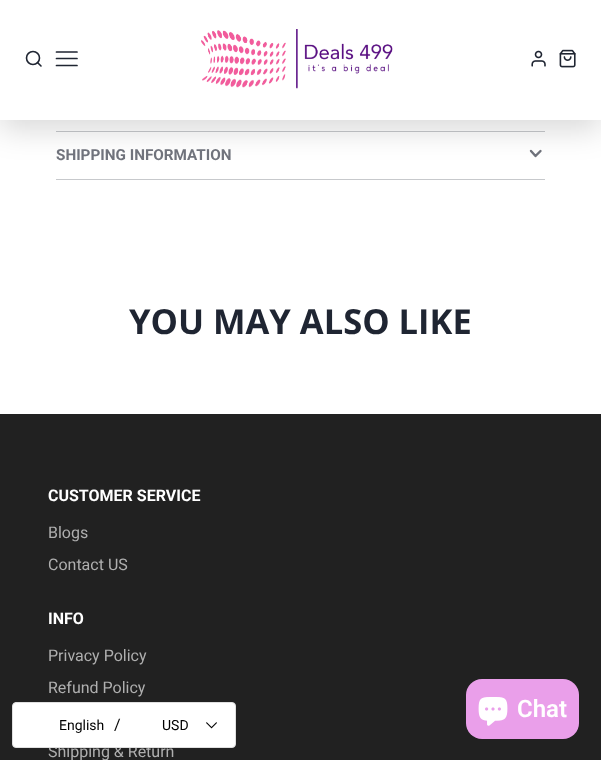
async function draw(canvas) {
	canvas.width = 601;
	canvas.height = 760;
	const c = canvas.getContext('2d');
	c.miterLimit = 4;
	c.fontKerning = 'normal';
	async function loadImage(src) {
		const img = new Image();
		img.src = src;
		await img.decode();
		return img;
	}

	c.fillStyle = '#fff';
	c.fillRect(0, 0, 601, 760);
	c.fillStyle = '#c7c9cc';
	c.fillRect(56, 131, 489, 1);
	c.beginPath();
	c.moveTo(531, 151);
	c.lineTo(535.5, 156);
	c.lineTo(540.5, 151);
	c.strokeStyle = '#70737c';
	c.lineWidth = 2.4;
	c.lineCap = 'round';
	c.lineJoin = 'round';
	c.stroke();
	c.fillStyle = '#00000026';
	c.filter = 'blur(15px)';
	c.beginPath();
	c.rect(0, 10, 601, 120);
	c.fill();
	c.filter = 'none';
	c.fillStyle = '#fff';
	c.fillRect(0, 0, 601, 120);
	c.beginPath();
	c.arc(33, 58, 6.5, 0, 2 * Math.PI);
	c.strokeStyle = '#1f2532';
	c.lineWidth = 1.6;
	c.stroke();
	c.beginPath();
	c.moveTo(41, 66);
	c.lineTo(37.5, 62.5);
	c.stroke();
	c.beginPath();
	c.moveTo(56.5, 58.5);
	c.lineTo(77, 58.5);
	c.moveTo(56.5, 52);
	c.lineTo(77, 52);
	c.moveTo(56.5, 65.5);
	c.lineTo(77, 65.5);
	c.lineWidth = 1.7;
	c.stroke();
	c.drawImage(await loadImage('img1.png'), 201, 29, 192, 60);
	c.drawImage(await loadImage('img2.png'), 531, 50, 15, 17);
	c.drawImage(await loadImage('img3.png'), 559, 49, 17, 19);
	c.font = 'bold 15.25px Roboto';
	c.fillStyle = '#70737c';
	c.fillText('SHIPPING INFORMATION', 56, 160);
	c.fillStyle = '#c7c9cc';
	c.fillRect(56, 179, 489, 1);
	c.font = 'bold 34.5px Open Sans';
	c.fillStyle = '#1f2532';
	c.fillText('YOU MAY ALSO LIKE', 129, 334);
	c.fillStyle = '#212121';
	c.fillRect(0, 414, 601, 346);
	c.font = 'bold 16px Roboto';
	c.fillStyle = '#fff';
	c.fillText('CUSTOMER SERVICE', 48, 501);
	c.font = '16px Roboto';
	c.fillStyle = '#afafaf';
	c.fillText('Blogs', 48, 538);
	c.fillText('Contact US', 48, 570);
	c.font = 'bold 16px Roboto';
	c.fillStyle = '#fff';
	c.fillText('INFO', 48, 624);
	c.font = '16px Roboto';
	c.fillStyle = '#afafaf';
	for (const [text, x, y] of [
		['Privacy Policy', 48, 661],
		['Refund Policy', 48, 693],
		['Shipping & Return', 48, 757],
	]) {
		c.fillText(text, x, y);
	}
	c.fillStyle = '#ea9fea';
	c.beginPath();
	c.roundRect(466, 679, 113, 60, 16);
	c.fill();
	c.drawImage(await loadImage('img4.png'), 478, 697, 30, 29);
	c.font = '600 24px Roboto';
	c.fillStyle = '#fff';
	c.fillText('Chat', 517, 717);
	c.beginPath();
	c.roundRect(12.5, 702.5, 223, 45, 3.5);
	c.fill();
	c.strokeStyle = '#e0e0e0';
	c.lineWidth = 1;
	c.lineJoin = 'miter';
	c.stroke();
	c.font = '14px Roboto';
	c.fillStyle = '#000';
	c.fillText('English', 59, 730);
	c.font = '16px Roboto';
	c.fillText('/', 114, 730);
	c.font = '14px Roboto';
	c.fillText('USD', 162, 730);
	c.drawImage(await loadImage('img5.png'), 206, 722, 11, 7);
}

draw(document.querySelector('canvas'));
